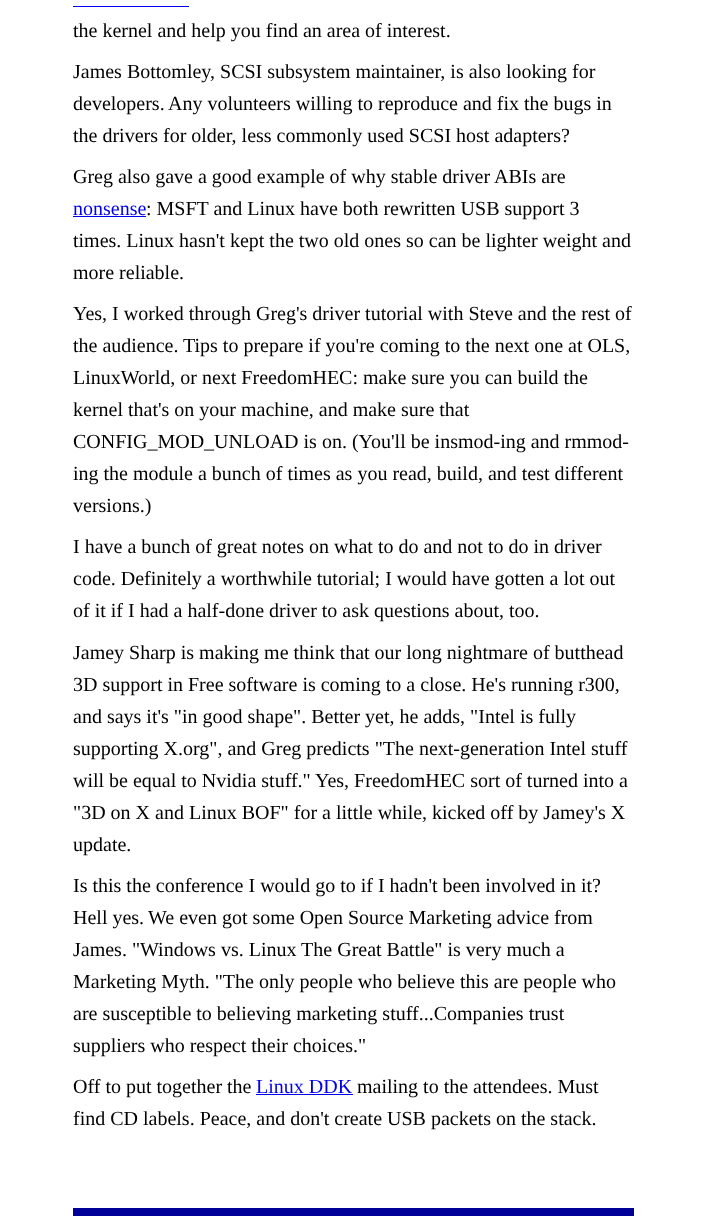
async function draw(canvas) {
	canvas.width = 704;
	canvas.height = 1216;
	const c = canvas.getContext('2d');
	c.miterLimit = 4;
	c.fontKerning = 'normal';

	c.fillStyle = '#fff';
	c.fillRect(0, 0, 704, 1216);
	c.fillStyle = '#00e';
	c.fillRect(73, 6, 116, 1);
	c.font = '20px Liberation Serif';
	c.fillStyle = '#000';
	for (const [text, x, y] of [
		['the kernel and help you find an area of interest.', 73, 37],
		['James Bottomley, SCSI subsystem maintainer, is also looking for', 73, 78],
		['developers.', 73, 110],
		['Any volunteers willing to reproduce and fix the bugs in', 168, 110],
		['the drivers for older, less commonly used SCSI host adapters?', 73, 142],
		['Greg also gave a good example of why stable driver ABIs are', 73, 183],
	]) {
		c.fillText(text, x, y);
	}
	c.fillStyle = '#00e';
	c.fillText('nonsense', 73, 215);
	c.fillRect(73, 216, 73, 1);
	c.fillStyle = '#000';
	for (const [text, x, y] of [
		[': MSFT and Linux have both rewritten USB support 3', 146, 215],
		['times. Linux hasn\'t kept the two old ones so can be lighter weight and', 73, 247],
		['more reliable.', 73, 279],
		['Yes, I worked through Greg\'s driver tutorial with Steve and the rest of', 73, 320],
		['the audience.', 73, 352],
		['Tips to prepare if you\'re coming to the next one at OLS,', 183, 352],
		['LinuxWorld, or next FreedomHEC: make sure you can build the', 73, 384],
		['kernel that\'s on your machine, and make sure that', 73, 416],
		['CONFIG_MOD_UNLOAD is on. (You\'ll be insmod-ing and rmmod-', 73, 448],
		['ing the module a bunch of times as you read, build, and test different', 73, 480],
		['versions.)', 73, 512],
		['I have a bunch of great notes on what to do and not to do in driver', 73, 553],
		['code. Definitely a worthwhile tutorial; I would have gotten a lot out', 73, 585],
		['of it if I had a half-done driver to ask questions about, too.', 73, 617],
		['Jamey Sharp is making me think that our long nightmare of butthead', 73, 659],
		['3D support in Free software is coming to a close. He\'s running r300,', 73, 691],
		['and says it\'s "in good shape". Better yet, he adds, "Intel is fully', 73, 723],
		['supporting X.org", and Greg predicts "The next-generation Intel stuff', 73, 755],
		['will be equal to Nvidia stuff."', 73, 787],
		['Yes, FreedomHEC sort of turned into a', 315, 787],
		['"3D on X and Linux BOF" for a little while, kicked off by Jamey\'s X', 73, 819],
		['update.', 73, 851],
		['Is this the conference I would go to if I hadn\'t been involved in it?', 73, 892],
		['Hell yes.', 73, 924],
		['We even got some Open Source Marketing advice from', 148, 924],
		['James. "Windows vs. Linux The Great Battle" is very much a', 73, 956],
		['Marketing Myth. "The only people who believe this are people who', 73, 988],
		['are susceptible to believing marketing stuff...Companies trust', 73, 1020],
		['suppliers who respect their choices."', 73, 1052],
		['Off to put together the', 73, 1093],
	]) {
		c.fillText(text, x, y);
	}
	c.fillStyle = '#00e';
	c.fillText('Linux DDK', 256, 1093);
	c.fillRect(256, 1094, 97, 1);
	c.fillStyle = '#000';
	c.fillText('mailing to the attendees. Must', 357, 1093);
	c.fillText('find CD labels. Peace, and don\'t create USB packets on the stack.', 73, 1125);
	c.fillStyle = '#009';
	c.fillRect(73, 1208, 561, 8);
}

draw(document.querySelector('canvas'));
